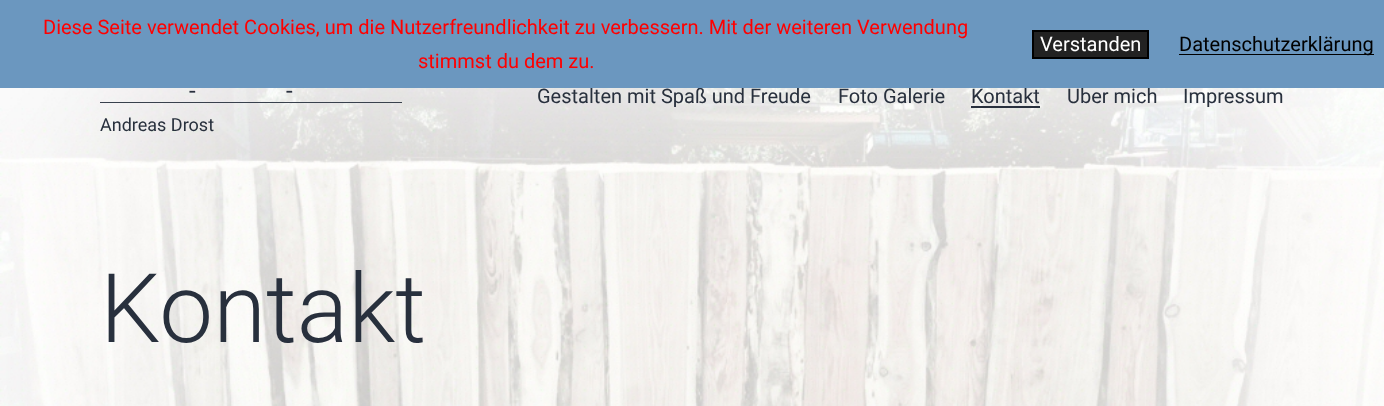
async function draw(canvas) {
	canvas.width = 1384;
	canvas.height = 406;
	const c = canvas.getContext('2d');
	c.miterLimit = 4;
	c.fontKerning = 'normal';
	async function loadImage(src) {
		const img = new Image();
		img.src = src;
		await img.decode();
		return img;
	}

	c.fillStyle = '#fff';
	c.fillRect(0, 0, 1384, 406);
	c.drawImage(await loadImage('img1.png'), 0, 88, 1384, 318);
	c.font = '20px Roboto';
	c.fillStyle = '#28303d';
	c.fillText('Gestalten mit Spaß und Freude', 537, 103);
	c.fillText('Über mich', 1067, 103);
	c.fillStyle = '#6b97bf';
	c.fillRect(0, 0, 1384, 88);
	c.fillStyle = '#f00';
	c.fillText('Diese Seite verwendet Cookies, um die Nutzerfreundlichkeit zu verbessern. Mit der weiteren Verwendung', 43, 34);
	c.fillText('stimmst du dem zu.', 418, 68);
	c.fillStyle = '#222';
	c.beginPath();
	c.rect(1033, 31, 115, 27);
	c.fill();
	c.strokeStyle = '#000';
	c.lineWidth = 2;
	c.stroke();
	c.fillStyle = '#fff';
	c.fillText('Verstanden', 1040, 51);
	c.fillStyle = '#000';
	c.fillRect(1179, 54, 195, 1);
	c.fillText('Datenschutzerklärung', 1179, 51);
	c.font = '24px Roboto';
	c.fillStyle = '#28303d';
	c.fillText('-', 189, 99);
	c.fillStyle = '#39414d';
	c.fillRect(100, 102, 302, 1);
	c.fillStyle = '#28303d';
	c.fillText('-', 286, 99);
	c.font = '18px Roboto';
	c.fillText('Andreas Drost', 100, 131);
	c.font = '20px Roboto';
	c.fillText('Foto Galerie', 838, 103);
	c.fillText('Kontakt', 971, 103);
	c.fillRect(971, 106, 69, 2);
	c.fillText('Impressum', 1183, 103);
	c.font = '300 96px Roboto';
	c.fillText('Kontakt', 100, 342);
}

draw(document.querySelector('canvas'));
